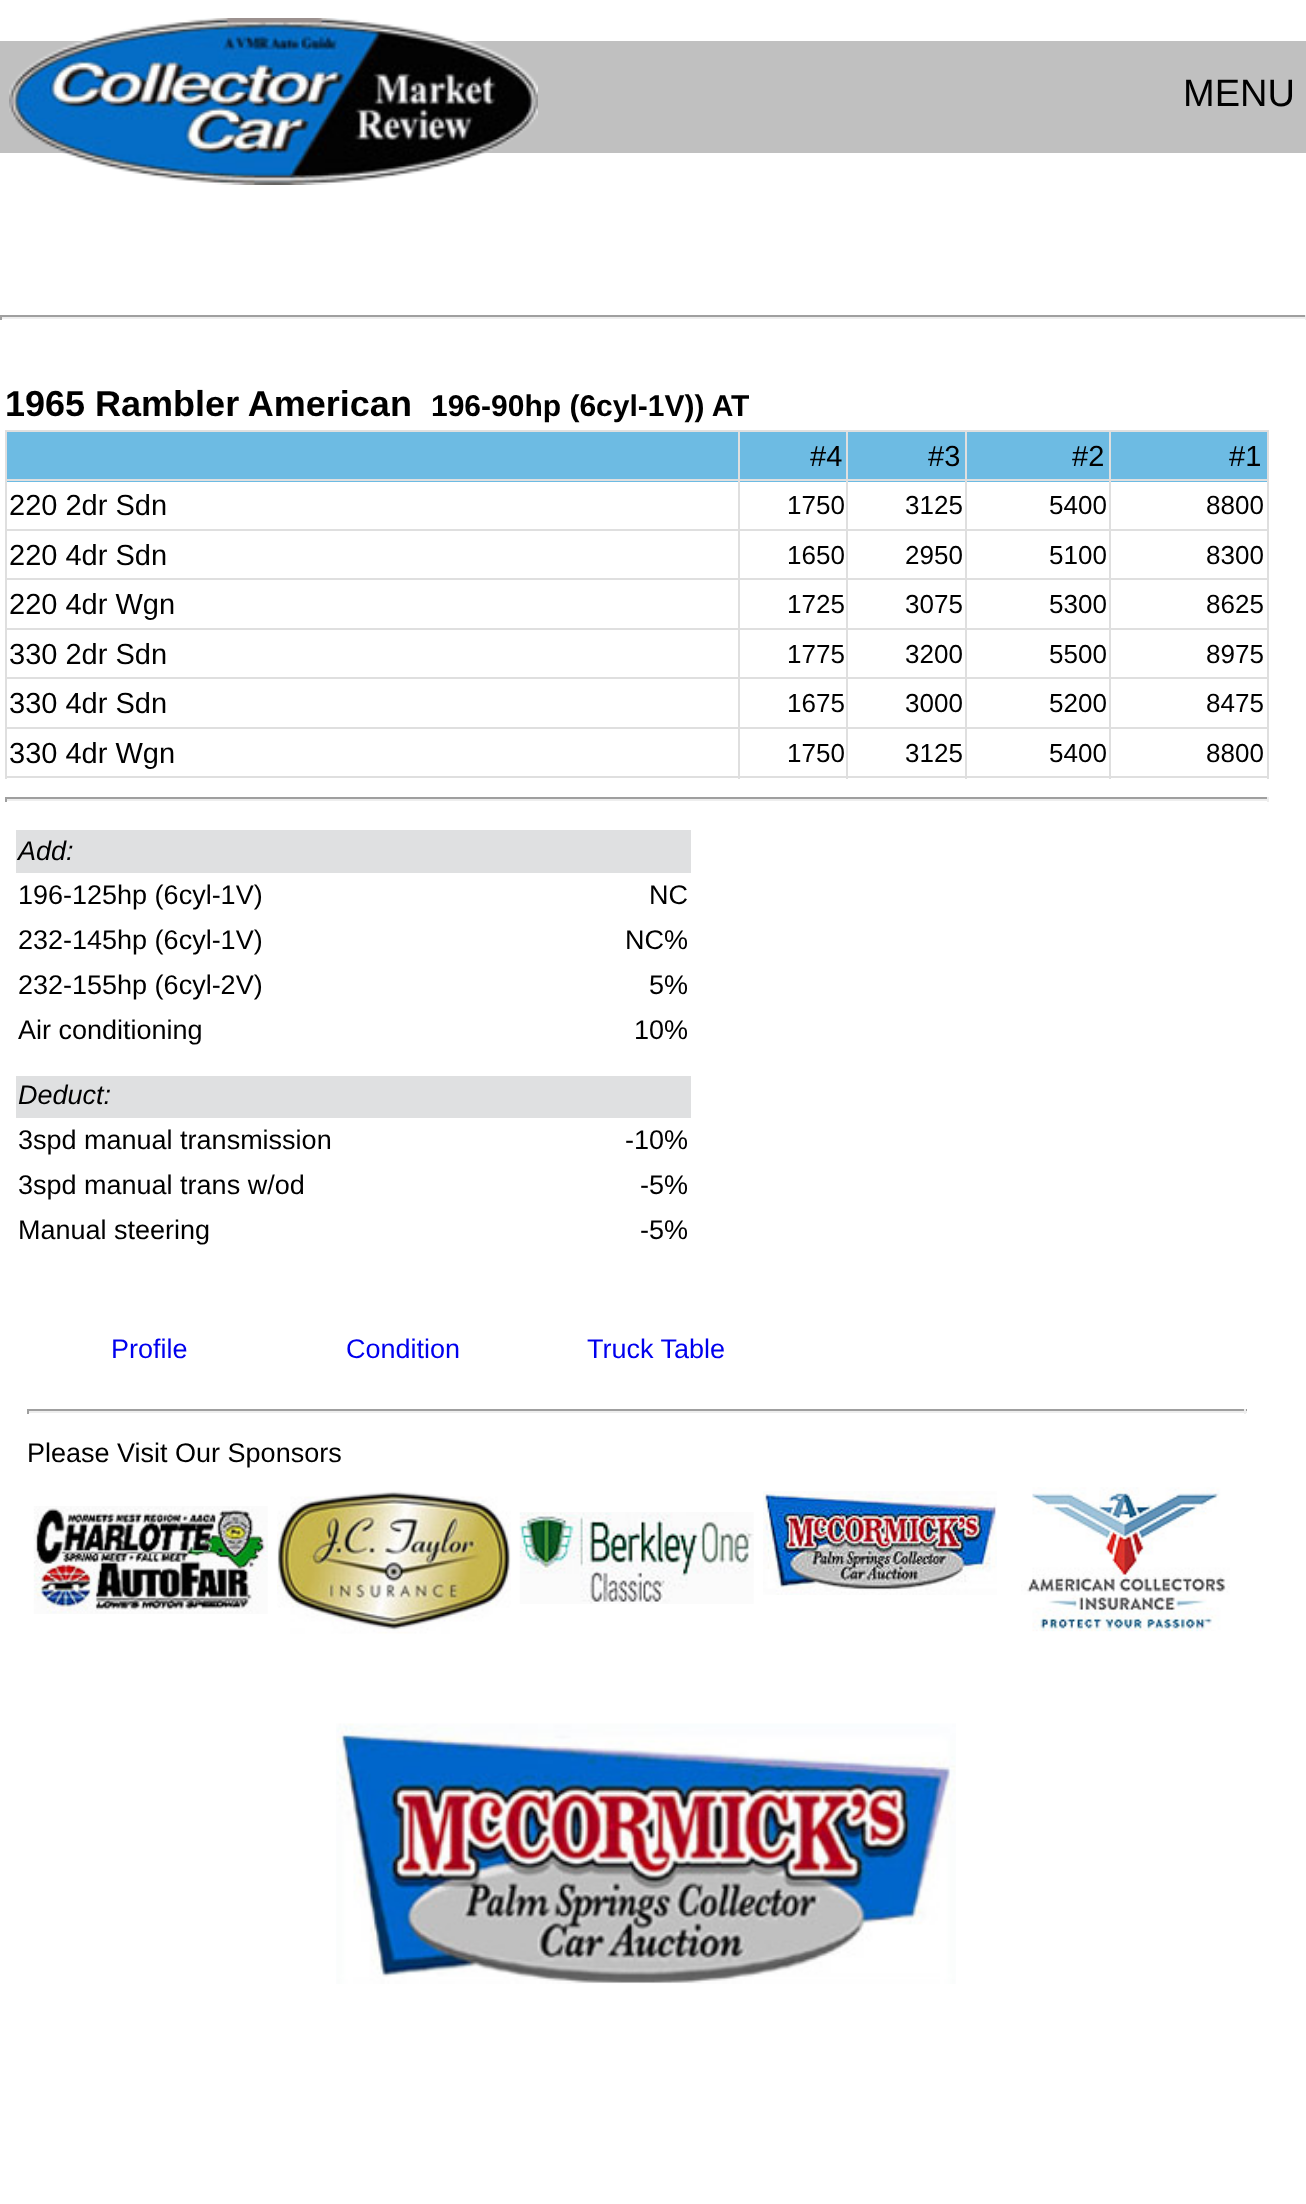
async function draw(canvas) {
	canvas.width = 1306;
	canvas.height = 2204;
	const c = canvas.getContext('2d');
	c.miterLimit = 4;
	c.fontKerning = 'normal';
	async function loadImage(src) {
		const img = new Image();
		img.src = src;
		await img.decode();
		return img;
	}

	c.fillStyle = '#fff';
	c.fillRect(0, 0, 1306, 2204);
	c.fillStyle = '#c0c0c0';
	c.fillRect(0, 41, 1306, 112);
	c.drawImage(await loadImage('img1.png'), 9, 18, 529, 167);
	c.font = '38px Liberation Sans';
	c.fillStyle = '#000';
	c.fillText('MENU', 1183, 106);
	for (const [x, y, w, h, color] of [
		[0, 315, 1306, 2, '#9f9f9f'],
		[1305, 315, 1, 5, '#eee'],
		[0, 317, 1306, 2, '#eee'],
		[0, 315, 2, 5, '#9f9f9f'],
	]) {
		c.fillStyle = color;
		c.fillRect(x, y, w, h);
	}
	c.font = 'bold 36px Liberation Sans';
	c.fillStyle = '#000';
	c.fillText('1965 Rambler American', 5, 416);
	c.font = 'bold 30px Liberation Sans';
	c.fillText('196-90hp (6cyl-1V)) AT', 431, 416);
	for (const [x, y, w, h, color] of [
		[7, 432, 731, 50, '#6dbbe3'],
		[1109, 430, 160, 2, '#dfdfdf'],
		[967, 432, 142, 50, '#6dbbe3'],
		[1111, 432, 156, 50, '#6dbbe3'],
		[1109, 479, 160, 2, '#dfdfdf'],
		[1109, 529, 160, 2, '#dfdfdf'],
		[1109, 578, 160, 2, '#dfdfdf'],
		[1109, 628, 160, 2, '#dfdfdf'],
		[1109, 677, 160, 2, '#dfdfdf'],
		[1109, 727, 160, 2, '#dfdfdf'],
		[1267, 727, 2, 52, '#dfdfdf'],
		[1109, 776, 160, 2, '#dfdfdf'],
		[1109, 727, 2, 52, '#dfdfdf'],
		[965, 727, 147, 2, '#dfdfdf'],
		[1109, 677, 2, 52, '#dfdfdf'],
		[965, 677, 147, 2, '#dfdfdf'],
		[1109, 628, 2, 52, '#dfdfdf'],
		[965, 628, 147, 2, '#dfdfdf'],
		[1109, 578, 2, 52, '#dfdfdf'],
		[965, 578, 147, 2, '#dfdfdf'],
		[1109, 529, 2, 52, '#dfdfdf'],
		[965, 529, 147, 2, '#dfdfdf'],
		[1109, 479, 2, 52, '#dfdfdf'],
		[965, 479, 147, 2, '#dfdfdf'],
		[1109, 430, 2, 52, '#dfdfdf'],
		[965, 430, 147, 2, '#dfdfdf'],
		[848, 432, 117, 50, '#6dbbe3'],
		[965, 776, 147, 2, '#dfdfdf'],
		[965, 727, 2, 52, '#dfdfdf'],
		[846, 727, 122, 2, '#dfdfdf'],
		[965, 677, 2, 52, '#dfdfdf'],
		[846, 677, 122, 2, '#dfdfdf'],
		[965, 628, 2, 52, '#dfdfdf'],
		[846, 628, 122, 2, '#dfdfdf'],
		[965, 578, 2, 52, '#dfdfdf'],
		[846, 578, 122, 2, '#dfdfdf'],
		[965, 529, 2, 52, '#dfdfdf'],
		[846, 529, 122, 2, '#dfdfdf'],
		[965, 479, 2, 52, '#dfdfdf'],
		[846, 479, 122, 2, '#dfdfdf'],
		[965, 430, 2, 52, '#dfdfdf'],
		[846, 430, 122, 2, '#dfdfdf'],
		[740, 432, 106, 50, '#6dbbe3'],
		[846, 776, 122, 2, '#dfdfdf'],
		[846, 727, 2, 52, '#dfdfdf'],
		[738, 727, 110, 2, '#dfdfdf'],
		[846, 677, 2, 52, '#dfdfdf'],
		[738, 677, 110, 2, '#dfdfdf'],
		[846, 628, 2, 52, '#dfdfdf'],
		[738, 628, 110, 2, '#dfdfdf'],
		[846, 578, 2, 52, '#dfdfdf'],
		[738, 578, 110, 2, '#dfdfdf'],
		[846, 529, 2, 52, '#dfdfdf'],
		[738, 529, 110, 2, '#dfdfdf'],
		[846, 479, 2, 52, '#dfdfdf'],
		[738, 479, 110, 2, '#dfdfdf'],
		[846, 430, 2, 52, '#dfdfdf'],
		[738, 430, 110, 2, '#dfdfdf'],
		[738, 776, 110, 2, '#dfdfdf'],
		[738, 727, 2, 52, '#dfdfdf'],
		[5, 727, 735, 2, '#dfdfdf'],
		[738, 677, 2, 52, '#dfdfdf'],
		[5, 677, 735, 2, '#dfdfdf'],
		[738, 628, 2, 52, '#dfdfdf'],
		[5, 628, 735, 2, '#dfdfdf'],
		[738, 578, 2, 52, '#dfdfdf'],
		[5, 578, 735, 2, '#dfdfdf'],
		[738, 529, 2, 52, '#dfdfdf'],
		[5, 529, 735, 2, '#dfdfdf'],
		[738, 479, 2, 52, '#dfdfdf'],
		[5, 479, 735, 2, '#dfdfdf'],
		[738, 430, 2, 52, '#dfdfdf'],
		[5, 430, 735, 2, '#dfdfdf'],
		[5, 776, 735, 2, '#dfdfdf'],
		[5, 727, 2, 52, '#dfdfdf'],
		[5, 677, 2, 52, '#dfdfdf'],
		[5, 628, 2, 52, '#dfdfdf'],
		[5, 578, 2, 52, '#dfdfdf'],
		[5, 529, 2, 52, '#dfdfdf'],
		[5, 479, 2, 52, '#dfdfdf'],
		[5, 430, 2, 52, '#dfdfdf'],
	]) {
		c.fillStyle = color;
		c.fillRect(x, y, w, h);
	}
	c.font = '29px Liberation Sans';
	c.fillStyle = '#000';
	for (const [text, x, y] of [
		['#4', 810, 466],
		['#3', 928, 466],
		['#2', 1072, 466],
	]) {
		c.fillText(text, x, y);
	}
	for (const [x, y, w, h, color] of [
		[1267, 677, 2, 52, '#dfdfdf'],
		[1267, 628, 2, 52, '#dfdfdf'],
		[1267, 578, 2, 52, '#dfdfdf'],
		[1267, 529, 2, 52, '#dfdfdf'],
		[1267, 479, 2, 52, '#dfdfdf'],
		[1267, 430, 2, 52, '#dfdfdf'],
	]) {
		c.fillStyle = color;
		c.fillRect(x, y, w, h);
	}
	c.fillStyle = '#000';
	c.fillText('#1', 1229, 466);
	c.fillText('220 2dr Sdn', 9, 515);
	c.font = '26px Liberation Sans';
	for (const [text, x, y] of [
		['1750', 787, 514],
		['3125', 905, 514],
		['5400', 1049, 514],
		['8800', 1206, 514],
	]) {
		c.fillText(text, x, y);
	}
	c.font = '29px Liberation Sans';
	c.fillText('220 4dr Sdn', 9, 565);
	c.font = '26px Liberation Sans';
	for (const [text, x, y] of [
		['1650', 787, 564],
		['2950', 905, 564],
		['5100', 1049, 564],
		['8300', 1206, 564],
	]) {
		c.fillText(text, x, y);
	}
	c.font = '29px Liberation Sans';
	c.fillText('220 4dr Wgn', 9, 614);
	c.font = '26px Liberation Sans';
	for (const [text, x, y] of [
		['1725', 787, 613],
		['3075', 905, 613],
		['5300', 1049, 613],
		['8625', 1206, 613],
	]) {
		c.fillText(text, x, y);
	}
	c.font = '29px Liberation Sans';
	c.fillText('330 2dr Sdn', 9, 664);
	c.font = '26px Liberation Sans';
	for (const [text, x, y] of [
		['1775', 787, 663],
		['3200', 905, 663],
		['5500', 1049, 663],
		['8975', 1206, 663],
	]) {
		c.fillText(text, x, y);
	}
	c.font = '29px Liberation Sans';
	c.fillText('330 4dr Sdn', 9, 713);
	c.font = '26px Liberation Sans';
	for (const [text, x, y] of [
		['1675', 787, 712],
		['3000', 905, 712],
		['5200', 1049, 712],
		['8475', 1206, 712],
	]) {
		c.fillText(text, x, y);
	}
	c.font = '29px Liberation Sans';
	c.fillText('330 4dr Wgn', 9, 763);
	c.font = '26px Liberation Sans';
	for (const [text, x, y] of [
		['1750', 787, 762],
		['3125', 905, 762],
		['5400', 1049, 762],
		['8800', 1206, 762],
	]) {
		c.fillText(text, x, y);
	}
	for (const [x, y, w, h, color] of [
		[5, 797, 1264, 2, '#9f9f9f'],
		[1267, 797, 2, 5, '#eee'],
		[5, 799, 1264, 2, '#eee'],
		[5, 797, 2, 5, '#9f9f9f'],
		[16, 830, 675, 43, '#dfe0e1'],
	]) {
		c.fillStyle = color;
		c.fillRect(x, y, w, h);
	}
	c.font = 'italic 27px Liberation Sans';
	c.fillStyle = '#000';
	c.fillText('Add:', 18, 860);
	c.font = '27px Liberation Sans';
	for (const [text, x, y] of [
		['196-125hp (6cyl-1V)', 18, 904],
		['NC', 649, 904],
		['232-145hp (6cyl-1V)', 18, 949],
		['NC%', 625, 949],
		['232-155hp (6cyl-2V)', 18, 994],
		['5%', 649, 994],
		['Air conditioning', 18, 1039],
		['10%', 634, 1039],
	]) {
		c.fillText(text, x, y);
	}
	c.fillStyle = '#dfe0e1';
	c.fillRect(16, 1076, 675, 42);
	c.font = 'italic 27px Liberation Sans';
	c.fillStyle = '#000';
	c.fillText('Deduct:', 18, 1104);
	c.font = '27px Liberation Sans';
	for (const [text, x, y] of [
		['3spd manual transmission', 18, 1149],
		['-10%', 625, 1149],
		['3spd manual trans w/od', 18, 1194],
		['-5%', 640, 1194],
		['Manual steering', 18, 1239],
		['-5%', 640, 1239],
	]) {
		c.fillText(text, x, y);
	}
	c.fillStyle = '#00e';
	for (const [text, x, y] of [
		['Profile', 111, 1358],
		['Condition', 346, 1358],
		['Truck Table', 587, 1358],
	]) {
		c.fillText(text, x, y);
	}
	for (const [x, y, w, h, color] of [
		[27, 1409, 1220, 2, '#9f9f9f'],
		[1244, 1409, 2, 5, '#eee'],
		[27, 1411, 1220, 2, '#eee'],
		[27, 1409, 2, 5, '#9f9f9f'],
	]) {
		c.fillStyle = color;
		c.fillRect(x, y, w, h);
	}
	c.fillStyle = '#000';
	c.fillText('Please Visit Our Sponsors', 27, 1462);
	c.drawImage(await loadImage('img2.png'), 33, 1506, 235, 108);
	c.drawImage(await loadImage('img3.png'), 277, 1490, 234, 144);
	c.drawImage(await loadImage('img4.png'), 519, 1512, 235, 92);
	c.drawImage(await loadImage('img5.png'), 763, 1491, 234, 104);
	c.drawImage(await loadImage('img6.png'), 1021, 1487, 209, 145);
	c.drawImage(await loadImage('img7.png'), 336, 1723, 620, 261);
}

draw(document.querySelector('canvas'));
